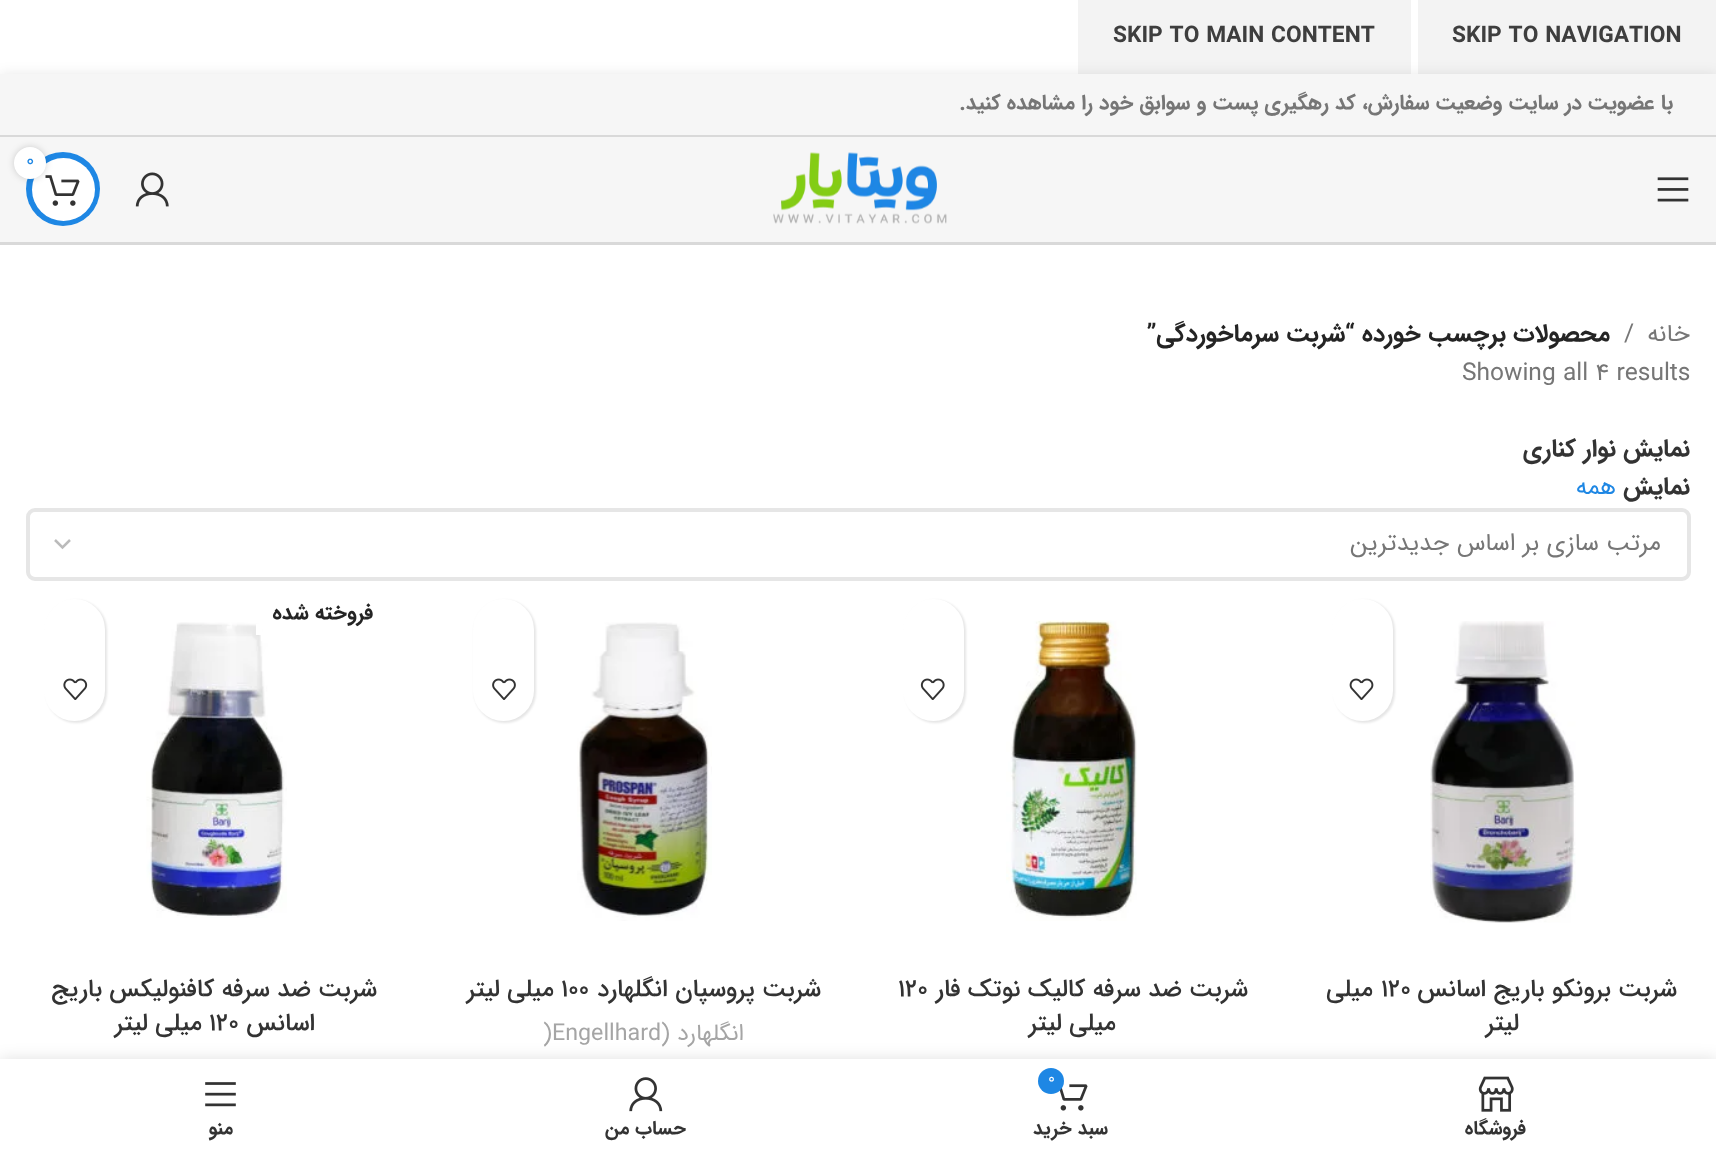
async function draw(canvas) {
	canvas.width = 1716;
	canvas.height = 1154;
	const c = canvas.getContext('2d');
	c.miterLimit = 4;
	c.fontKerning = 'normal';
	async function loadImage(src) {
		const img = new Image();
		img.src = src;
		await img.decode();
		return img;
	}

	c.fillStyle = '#fff';
	c.fillRect(0, 0, 1716, 1154);
	c.fillStyle = '#f3f3f3';
	c.fillRect(1418, 0, 298, 74);
	c.font = 'bold 22.75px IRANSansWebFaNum';
	c.fillStyle = '#3e3e3e';
	c.fillText('SKIP TO NAVIGATION', 1452, 42);
	c.fillStyle = '#f3f3f3';
	c.fillRect(1078, 0, 333, 74);
	c.fillStyle = '#3e3e3e';
	c.fillText('SKIP TO MAIN CONTENT', 1113, 42);
	c.fillStyle = '#0000001a';
	c.filter = 'blur(7px)';
	c.beginPath();
	c.rect(0, 75, 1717, 63);
	c.fill();
	c.filter = 'none';
	c.fillStyle = '#f6f6f6';
	c.fillRect(0, 74, 1716, 61);
	c.fillStyle = '#d9d9d9';
	c.fillRect(0, 135, 1716, 2);
	c.direction = 'rtl';
	c.font = 'bold 21px IRANSansWebFaNum';
	c.fillStyle = '#767676';
	c.fillText('با عضویت در سایت وضعیت سفارش، کد رهگیری پست و سوابق خود را مشاهده کنید.', 1673, 109);
	c.fillStyle = '#f6f6f6';
	c.fillRect(0, 137, 1716, 105);
	c.fillStyle = '#d9d9d9';
	c.fillRect(0, 242, 1716, 3);
	c.drawImage(await loadImage('img1.png'), 773, 152, 174, 72);
	c.fillStyle = '#1e87e4';
	c.beginPath();
	c.arc(63, 189, 37, 0, 2 * Math.PI);
	c.fill();
	c.fillStyle = '#fff';
	c.beginPath();
	c.arc(63.5, 189.5, 31.5, 0, 2 * Math.PI);
	c.fill();
	c.drawImage(await loadImage('img2.png'), 45, 175, 35, 31);
	c.fillStyle = '#0000002b';
	c.filter = 'blur(3.5px)';
	c.beginPath();
	c.roundRect(14, 147, 32, 32, 16);
	c.fill();
	c.filter = 'none';
	c.fillStyle = '#fff';
	c.beginPath();
	c.arc(30, 163, 16, 0, 2 * Math.PI);
	c.fill();
	c.direction = 'ltr';
	c.font = '19.25px IRANSansWebFaNum';
	c.fillStyle = '#1e87e4';
	c.fillText('0', 26, 166);
	c.drawImage(await loadImage('img3.png'), 135, 172, 34, 35);
	c.drawImage(await loadImage('img4.png'), 1657, 177, 32, 25);
	c.direction = 'rtl';
	c.font = '24.5px IRANSansWebFaNum';
	c.fillStyle = '#767676';
	c.fillText('خانه', 1690, 341);
	c.direction = 'ltr';
	c.fillText('/', 1624, 341);
	c.direction = 'rtl';
	c.font = 'bold 24.5px IRANSansWebFaNum';
	c.fillStyle = '#242424';
	c.fillText('محصولات برچسب خورده', 1610, 341);
	c.fillText('“شربت سرماخوردگی”', 1355, 341);
	c.direction = 'ltr';
	c.font = '24.5px IRANSansWebFaNum';
	c.fillStyle = '#767676';
	c.fillText('Showing all 4 results', 1462, 380);
	c.direction = 'rtl';
	c.font = 'bold 24.5px IRANSansWebFaNum';
	c.fillStyle = '#333';
	c.fillText('نمایش نوار کناری', 1690, 456);
	c.fillText('نمایش', 1690, 494);
	c.font = '24.5px IRANSansWebFaNum';
	c.fillStyle = '#1e87e4';
	c.fillText('همه', 1616, 494);
	c.beginPath();
	c.moveTo(55, 540);
	c.lineTo(62.5, 547.5);
	c.lineTo(70, 540);
	c.strokeStyle = '#bbb';
	c.lineWidth = 2.5;
	c.stroke();
	c.beginPath();
	c.roundRect(28, 510, 1661, 69, 7);
	c.strokeStyle = '#e6e6e6';
	c.lineWidth = 4;
	c.stroke();
	c.fillStyle = '#767676';
	c.fillText('مرتب سازی بر اساس جدیدترین', 1661, 550);
	c.drawImage(await loadImage('img5.png'), 1430, 621, 146, 302);
	c.fillStyle = '#0000001a';
	c.filter = 'blur(1px)';
	c.beginPath();
	c.roundRect(1334, 600, 61, 123, 30.5);
	c.fill();
	c.filter = 'none';
	c.fillStyle = '#fff';
	c.beginPath();
	c.roundRect(1332, 599, 61, 122, 30.5);
	c.fill();
	c.drawImage(await loadImage('img6.png'), 1349, 678, 25, 22);
	c.font = '500 24.5px IRANSansWebFaNum';
	c.fillStyle = '#333';
	c.fillText('شربت برونکو باریج اسانس', 1677, 996);
	c.direction = 'ltr';
	c.fillText('۱۲۰', 1381, 996);
	c.direction = 'rtl';
	c.fillText('میلی', 1373, 996);
	c.fillText('لیتر', 1519, 1030);
	c.drawImage(await loadImage('img7.png'), 1006, 620, 131, 301);
	c.fillStyle = '#0000001a';
	c.filter = 'blur(1px)';
	c.beginPath();
	c.roundRect(905, 600, 61, 123, 30.5);
	c.fill();
	c.filter = 'none';
	c.fillStyle = '#fff';
	c.beginPath();
	c.roundRect(903, 599, 61, 122, 30.5);
	c.fill();
	c.drawImage(await loadImage('img8.png'), 920, 678, 25, 22);
	c.fillStyle = '#333';
	c.fillText('شربت ضد سرفه کالیک نوتک فار', 1248, 996);
	c.direction = 'ltr';
	c.fillText('۱۲۰', 898, 996);
	c.direction = 'rtl';
	c.fillText('میلی لیتر', 1116, 1030);
	c.drawImage(await loadImage('img9.png'), 577, 622, 135, 299);
	c.fillStyle = '#0000001a';
	c.filter = 'blur(1px)';
	c.beginPath();
	c.roundRect(474, 600, 62, 123, 31);
	c.fill();
	c.filter = 'none';
	c.fillStyle = '#fff';
	c.beginPath();
	c.roundRect(473, 599, 61, 122, 30.5);
	c.fill();
	c.drawImage(await loadImage('img10.png'), 492, 678, 24, 22);
	c.fillStyle = '#333';
	c.fillText('شربت پروسپان انگلهارد', 821, 996);
	c.direction = 'ltr';
	c.fillText('۱۰۰', 561, 996);
	c.direction = 'rtl';
	c.fillText('میلی لیتر', 554, 996);
	c.font = '23.25px IRANSansWebFaNum';
	c.fillStyle = '#a5a5a5';
	c.fillText('انگلهارد (', 744, 1040);
	c.direction = 'ltr';
	c.fillText(')Engellhard', 543, 1040);
	c.drawImage(await loadImage('img11.png'), 146, 622, 141, 296);
	c.fillStyle = '#fff';
	c.fillRect(256, 624, 6, 11);
	c.direction = 'rtl';
	c.font = 'bold 21px IRANSansWebFaNum';
	c.fillStyle = '#242424';
	c.fillText('فروخته شده', 373, 619);
	c.fillStyle = '#0000001a';
	c.filter = 'blur(1px)';
	c.beginPath();
	c.roundRect(46, 600, 61, 123, 30.5);
	c.fill();
	c.filter = 'none';
	c.fillStyle = '#fff';
	c.beginPath();
	c.roundRect(44, 599, 61, 122, 30.5);
	c.fill();
	c.drawImage(await loadImage('img12.png'), 63, 678, 25, 22);
	c.font = '500 24.5px IRANSansWebFaNum';
	c.fillStyle = '#333';
	c.fillText('شربت ضد سرفه کافنولیکس باریج', 377, 996);
	c.fillText('اسانس', 315, 1030);
	c.direction = 'ltr';
	c.fillText('120', 209, 1030);
	c.direction = 'rtl';
	c.fillText('میلی لیتر', 202, 1030);
	c.fillStyle = '#0000001f';
	c.filter = 'blur(8px)';
	c.beginPath();
	c.rect(0, 1059, 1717, 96);
	c.fill();
	c.filter = 'none';
	c.fillStyle = '#fff';
	c.fillRect(0, 1059, 1716, 95);
	c.drawImage(await loadImage('img13.png'), 1478, 1076, 36, 36);
	c.font = 'bold 19.25px IRANSansWebFaNum';
	c.fillStyle = '#333';
	c.fillText('فروشگاه', 1526, 1134);
	c.drawImage(await loadImage('img14.png'), 1059, 1084, 29, 27);
	c.fillStyle = '#1e87e4';
	c.beginPath();
	c.arc(1051, 1081, 13, 0, 2 * Math.PI);
	c.fill();
	c.direction = 'ltr';
	c.font = '16px IRANSansWebFaNum';
	c.fillStyle = '#fff';
	c.fillText('0', 1048, 1083);
	c.direction = 'rtl';
	c.font = 'bold 19.25px IRANSansWebFaNum';
	c.fillStyle = '#333';
	c.fillText('سبد خرید', 1108, 1134);
	c.drawImage(await loadImage('img15.png'), 629, 1077, 34, 35);
	c.fillText('حساب من', 686, 1134);
	c.drawImage(await loadImage('img16.png'), 205, 1082, 31, 25);
	c.fillText('منو', 233, 1134);
}

draw(document.querySelector('canvas'));
